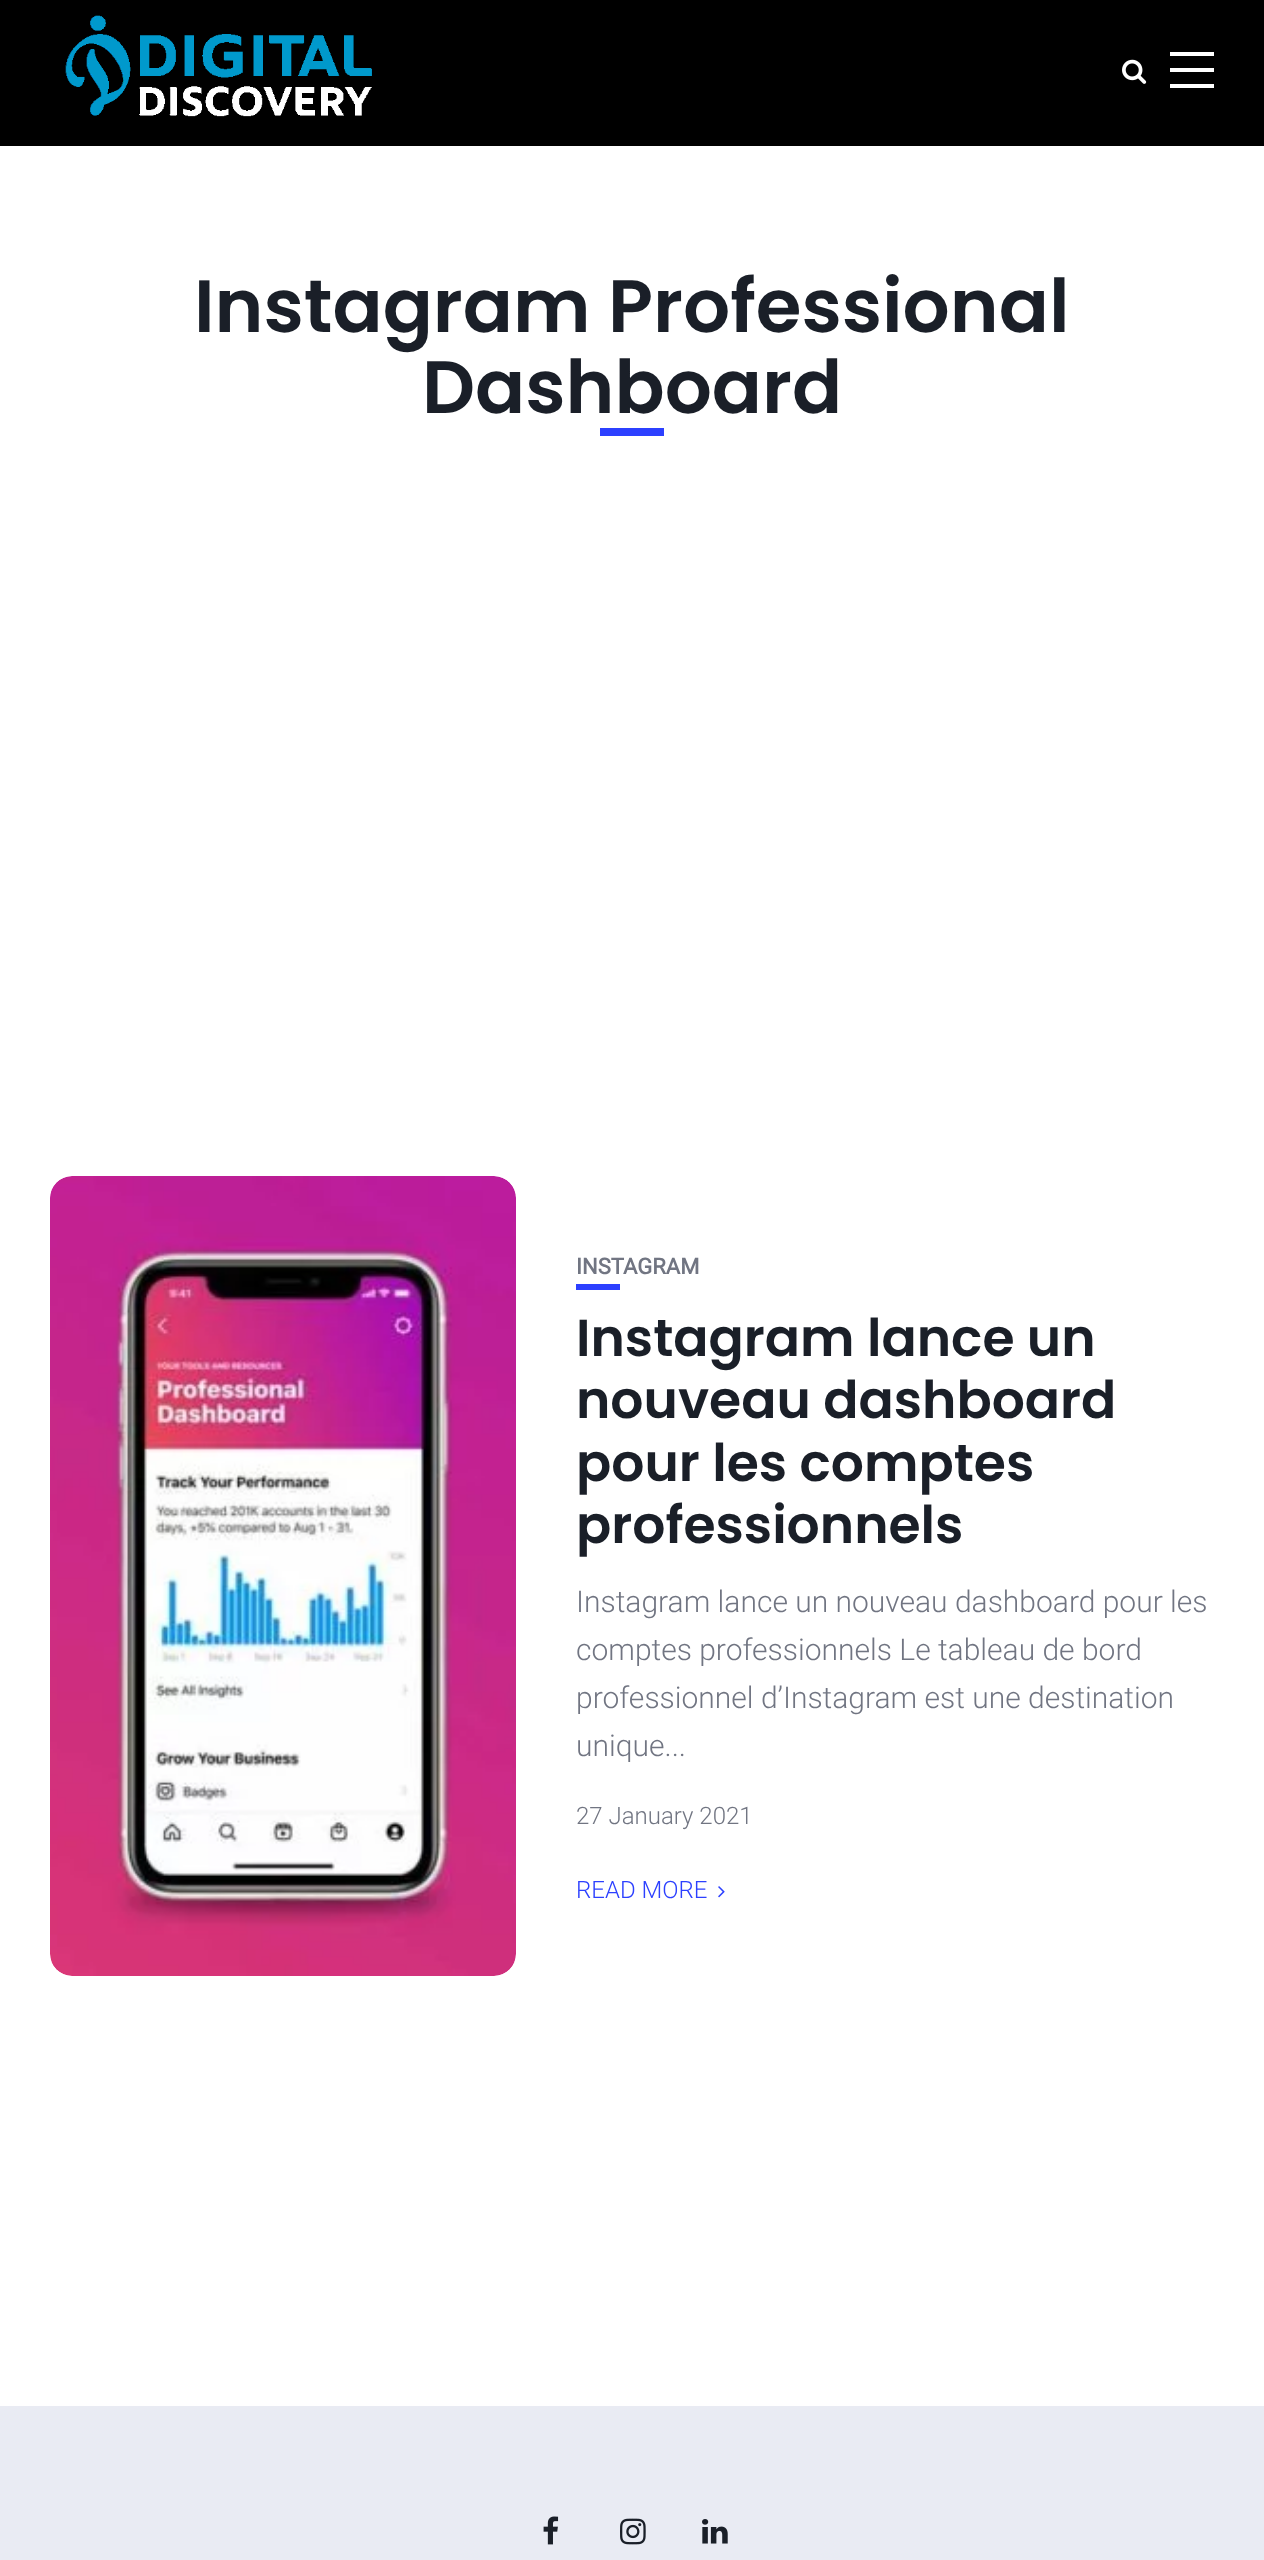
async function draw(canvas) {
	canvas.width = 1264;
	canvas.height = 2560;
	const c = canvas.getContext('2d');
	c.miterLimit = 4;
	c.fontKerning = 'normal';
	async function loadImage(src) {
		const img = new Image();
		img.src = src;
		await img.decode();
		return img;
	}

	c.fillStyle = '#fff';
	c.fillRect(0, 0, 1264, 2560);
	c.fillStyle = '#000';
	c.fillRect(0, 0, 1264, 146);
	c.drawImage(await loadImage('img1.png'), 65, 15, 307, 102);
	c.drawImage(await loadImage('img2.png'), 1122, 59, 25, 25);
	for (const [x, y, w, h, color] of [
		[1170, 52, 44, 4, '#fff'],
		[1170, 68, 44, 4, '#fff'],
		[1170, 84, 44, 4, '#fff'],
	]) {
		c.fillStyle = color;
		c.fillRect(x, y, w, h);
	}
	c.font = '600 74px Poppins';
	c.fillStyle = '#1a1f28';
	c.fillText('Instagram Professional', 194, 332);
	c.fillText('Dashboard', 422, 413);
	c.fillStyle = '#2c40ff';
	c.fillRect(600, 428, 64, 8);
	c.drawImage(await loadImage('img3.png'), 50, 1176, 466, 800);
	c.font = 'bold 22px Roboto';
	c.fillStyle = '#717582';
	c.fillText('INSTAGRAM', 576, 1274);
	c.fillStyle = '#2c40ff';
	c.fillRect(576, 1284, 44, 6);
	c.font = '600 52px Poppins';
	c.fillStyle = '#1a1f28';
	for (const [text, x, y] of [
		['Instagram lance un', 576, 1356],
		['nouveau dashboard', 576, 1418],
		['pour les comptes', 576, 1481],
		['professionnels', 576, 1543],
	]) {
		c.fillText(text, x, y);
	}
	c.font = '300 30px Roboto';
	c.fillStyle = '#717582';
	for (const [text, x, y] of [
		['Instagram lance un nouveau dashboard pour les', 576, 1612],
		['comptes professionnels Le tableau de bord', 576, 1660],
		['professionnel d’Instagram est une destination', 576, 1708],
		['unique...', 576, 1756],
	]) {
		c.fillText(text, x, y);
	}
	c.font = '300 24px Roboto';
	c.fillText('27 January 2021', 576, 1824);
	c.fillStyle = '#2c40ff';
	c.fillText('READ MORE', 576, 1898);
	c.drawImage(await loadImage('img4.png'), 718, 1886, 7, 12);
	c.fillStyle = '#e9ebf3';
	c.fillRect(0, 2406, 1264, 154);
	c.drawImage(await loadImage('img5.png'), 543, 2516, 16, 29);
	c.drawImage(await loadImage('img6.png'), 620, 2518, 26, 27);
	c.drawImage(await loadImage('img7.png'), 702, 2519, 26, 25);
}

draw(document.querySelector('canvas'));
